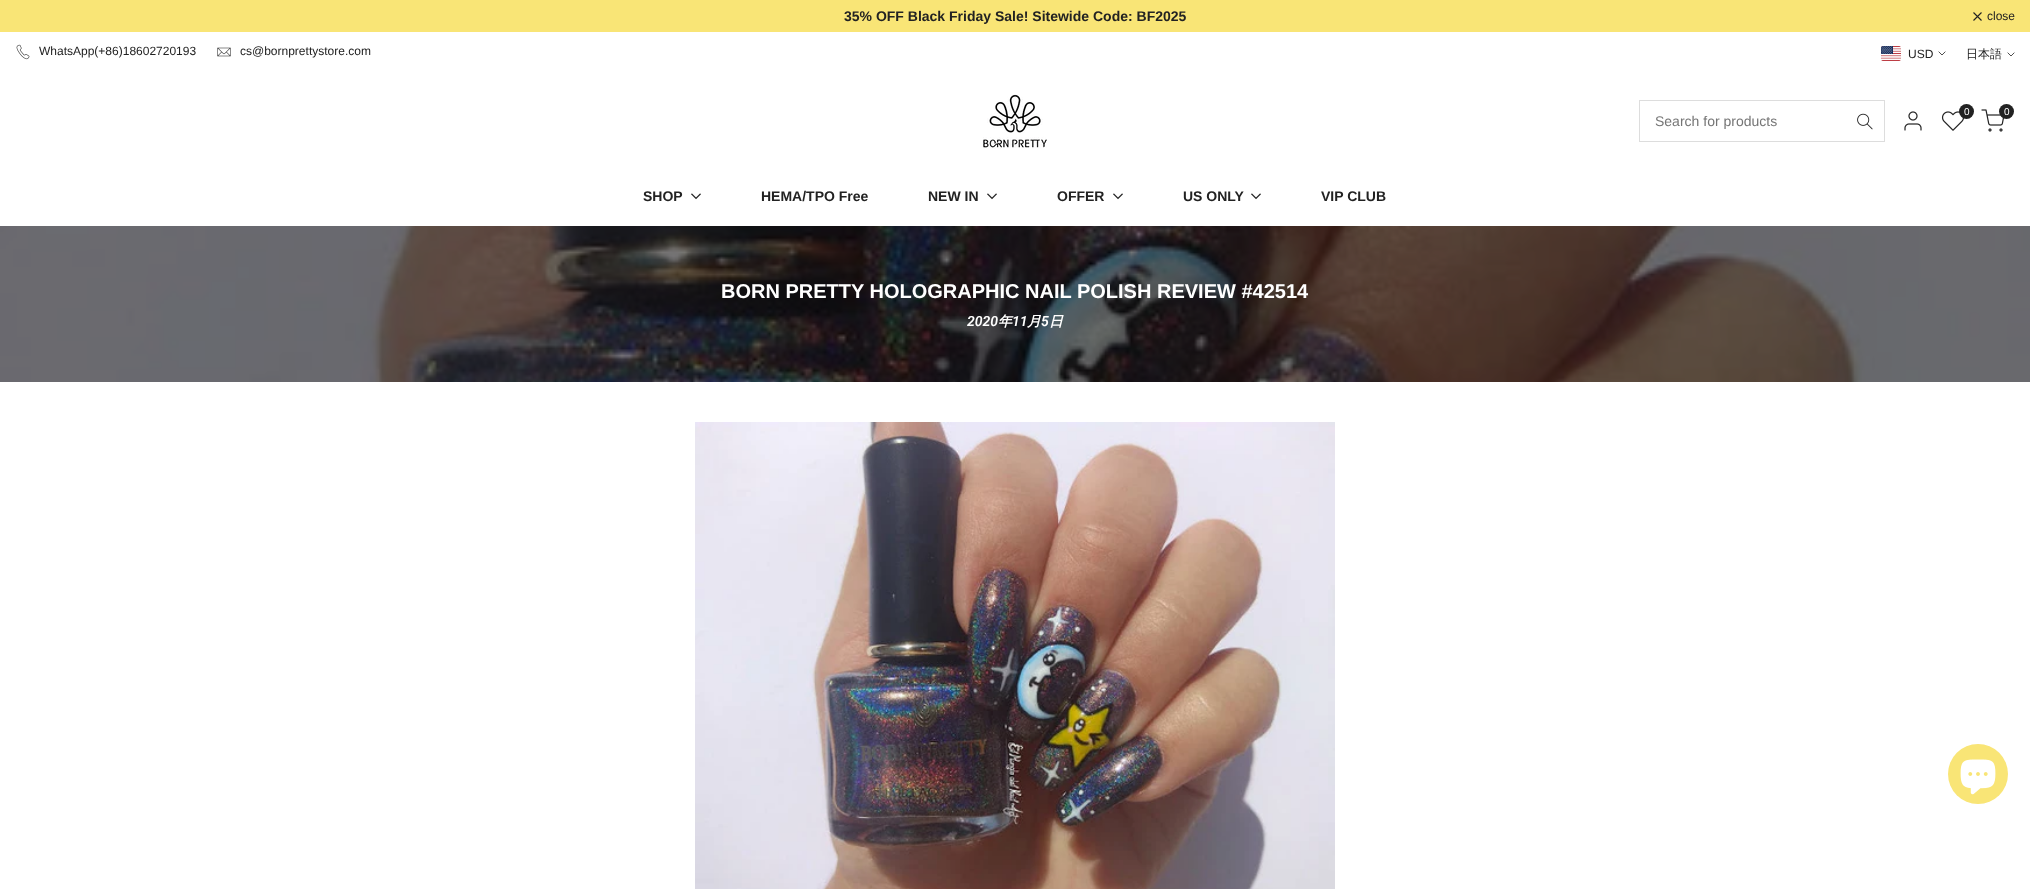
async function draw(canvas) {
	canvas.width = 2030;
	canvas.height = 889;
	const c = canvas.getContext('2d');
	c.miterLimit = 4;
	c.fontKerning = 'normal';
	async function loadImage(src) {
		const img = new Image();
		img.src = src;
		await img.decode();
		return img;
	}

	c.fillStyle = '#fff';
	c.fillRect(0, 0, 2030, 889);
	c.fillStyle = '#f9e576';
	c.fillRect(0, 0, 2030, 32);
	c.font = 'bold 14px Liberation Sans';
	c.fillStyle = '#222';
	c.fillText('35% OFF Black Friday Sale! Sitewide Code: BF2025', 844, 21);
	c.beginPath();
	c.moveTo(1981.5, 12.5);
	c.lineTo(1973.5, 20.5);
	c.moveTo(1981.5, 20.5);
	c.lineTo(1973.5, 12.5);
	c.strokeStyle = '#222';
	c.lineWidth = 1.1;
	c.stroke();
	c.font = '12px Liberation Sans';
	c.fillText('close', 1987, 20);
	c.drawImage(await loadImage('img1.png'), 16, 44, 14, 16);
	c.fillText('WhatsApp(+86)18602720193', 39, 55);
	c.drawImage(await loadImage('img2.png'), 217, 47, 14, 10);
	c.fillText('cs@bornprettystore.com', 240, 55);
	c.drawImage(await loadImage('img3.png'), 1881, 46, 20, 15);
	c.fillText('USD', 1908, 58);
	c.beginPath();
	c.moveTo(1945, 52);
	c.lineTo(1942, 55);
	c.lineTo(1939, 52);
	c.lineWidth = 0.8;
	c.lineCap = 'square';
	c.stroke();
	c.font = '500 12px WenQuanYi Zen Hei';
	c.fillText('日本語', 1966, 58);
	c.beginPath();
	c.moveTo(2014, 53);
	c.lineTo(2011, 56);
	c.lineTo(2008, 53);
	c.stroke();
	c.drawImage(await loadImage('img4.png'), 983, 94, 64, 55);
	c.strokeStyle = '#ddd';
	c.lineWidth = 1;
	c.strokeRect(1639.5, 100.5, 245, 41);
	c.font = '14px Liberation Sans';
	c.fillStyle = '#757575';
	c.fillText('Search for products', 1655, 126);
	c.drawImage(await loadImage('img5.png'), 1857, 113, 16, 17);
	c.drawImage(await loadImage('img6.png'), 1904, 111, 18, 20);
	c.drawImage(await loadImage('img7.png'), 1941, 111, 23, 20);
	c.fillStyle = '#222';
	c.beginPath();
	c.arc(1966.5, 111.5, 7.5, 0, 2 * Math.PI);
	c.fill();
	c.font = '10px Liberation Sans';
	c.fillStyle = '#fff';
	c.fillText('0', 1964, 115);
	c.drawImage(await loadImage('img8.png'), 1981, 109, 23, 23);
	c.fillStyle = '#222';
	c.beginPath();
	c.arc(2006.5, 111.5, 7.5, 0, 2 * Math.PI);
	c.fill();
	c.fillStyle = '#fff';
	c.fillText('0', 2004, 115);
	c.font = 'bold 14px Liberation Sans';
	c.fillStyle = '#222';
	c.fillText('SHOP', 643, 201);
	c.drawImage(await loadImage('img9.png'), 691, 193, 10, 7);
	c.fillText('HEMA/TPO Free', 761, 201);
	c.fillText('NEW IN', 928, 201);
	c.drawImage(await loadImage('img9.png'), 987, 193, 10, 7);
	c.fillText('OFFER', 1057, 201);
	c.drawImage(await loadImage('img9.png'), 1113, 193, 10, 7);
	c.fillText('US ONLY', 1183, 201);
	c.drawImage(await loadImage('img9.png'), 1251, 193, 10, 7);
	c.fillText('VIP CLUB', 1321, 201);
	c.drawImage(await loadImage('img10.png'), 0, 226, 2030, 156);
	c.font = 'bold 20px Liberation Sans';
	c.fillStyle = '#fff';
	c.fillText('BORN PRETTY HOLOGRAPHIC NAIL POLISH REVIEW #42514', 721, 298);
	c.font = 'italic 600 14px Roboto';
	c.fillText('2020', 967, 326);
	c.font = 'italic bold 14px WenQuanYi Zen Hei';
	c.fillText('年', 998, 326);
	c.font = 'italic 600 14px Roboto';
	c.fillText('11', 1012, 326);
	c.font = 'italic bold 14px WenQuanYi Zen Hei';
	c.fillText('月', 1027, 326);
	c.font = 'italic 600 14px Roboto';
	c.fillText('5', 1041, 326);
	c.font = 'italic bold 14px WenQuanYi Zen Hei';
	c.fillText('日', 1049, 326);
	c.drawImage(await loadImage('img11.png'), 695, 422, 640, 467);
	c.fillStyle = '#f9e576';
	c.beginPath();
	c.arc(1978, 774, 30, 0, 2 * Math.PI);
	c.fill();
	c.drawImage(await loadImage('img12.png'), 1960, 759, 36, 36);
}

draw(document.querySelector('canvas'));
